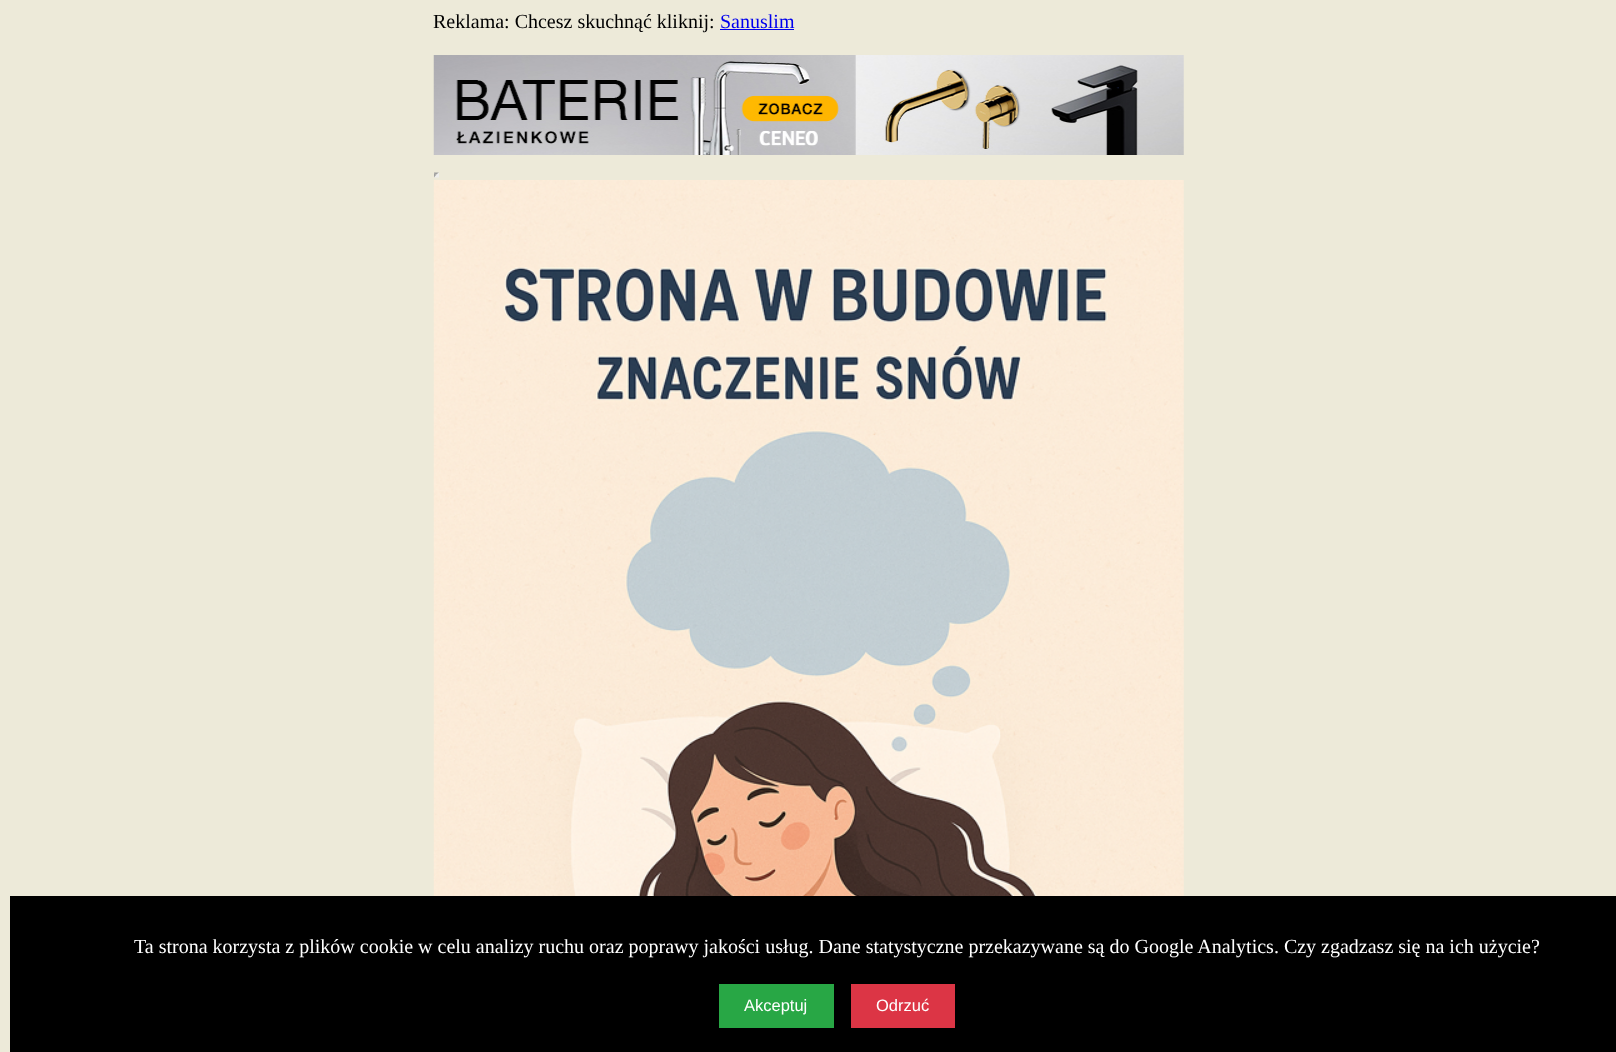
async function draw(canvas) {
	canvas.width = 1616;
	canvas.height = 1052;
	const c = canvas.getContext('2d');
	c.miterLimit = 4;
	c.fontKerning = 'normal';
	async function loadImage(src) {
		const img = new Image();
		img.src = src;
		await img.decode();
		return img;
	}

	c.fillStyle = '#edead9';
	c.fillRect(0, 0, 1616, 1052);
	c.font = '20px Liberation Serif';
	c.fillStyle = '#000';
	c.fillText('Reklama: Chcesz skuchnąć kliknij:', 433, 28);
	c.fillStyle = '#00e';
	c.fillText('Sanuslim', 720, 28);
	c.fillRect(720, 29, 74, 1);
	c.drawImage(await loadImage('img1.png'), 433, 55, 751, 100);
	c.fillStyle = '#9f9f9f';
	c.beginPath();
	c.moveTo(434, 172.5);
	c.lineTo(439, 172.5);
	c.lineTo(436, 175);
	c.closePath();
	c.fill();
	c.fillStyle = '#eee';
	c.beginPath();
	c.moveTo(439, 172.5);
	c.lineTo(439, 177.5);
	c.lineTo(436, 175);
	c.closePath();
	c.fill();
	c.beginPath();
	c.moveTo(439, 177.5);
	c.lineTo(434, 177.5);
	c.lineTo(436, 175);
	c.closePath();
	c.fill();
	c.fillStyle = '#9f9f9f';
	c.beginPath();
	c.moveTo(434, 177.5);
	c.lineTo(434, 172.5);
	c.lineTo(436, 175);
	c.closePath();
	c.fill();
	c.drawImage(await loadImage('img2.png'), 433, 180, 751, 716);
	c.fillStyle = '#000';
	c.fillRect(10, 896, 1606, 156);
	c.fillStyle = '#fff';
	c.fillText('Ta strona korzysta z plików cookie w celu analizy ruchu oraz poprawy jakości usług. Dane statystyczne przekazywane są do Google Analytics. Czy zgadzasz się na ich użycie?', 134, 953);
	c.fillStyle = '#28a745';
	c.fillRect(719, 984, 115, 44);
	c.font = '16.5px Liberation Sans';
	c.fillStyle = '#fff';
	c.fillText('Akceptuj', 744, 1011);
	c.fillStyle = '#dc3545';
	c.fillRect(851, 984, 104, 44);
	c.fillStyle = '#fff';
	c.fillText('Odrzuć', 876, 1011);
}

draw(document.querySelector('canvas'));
